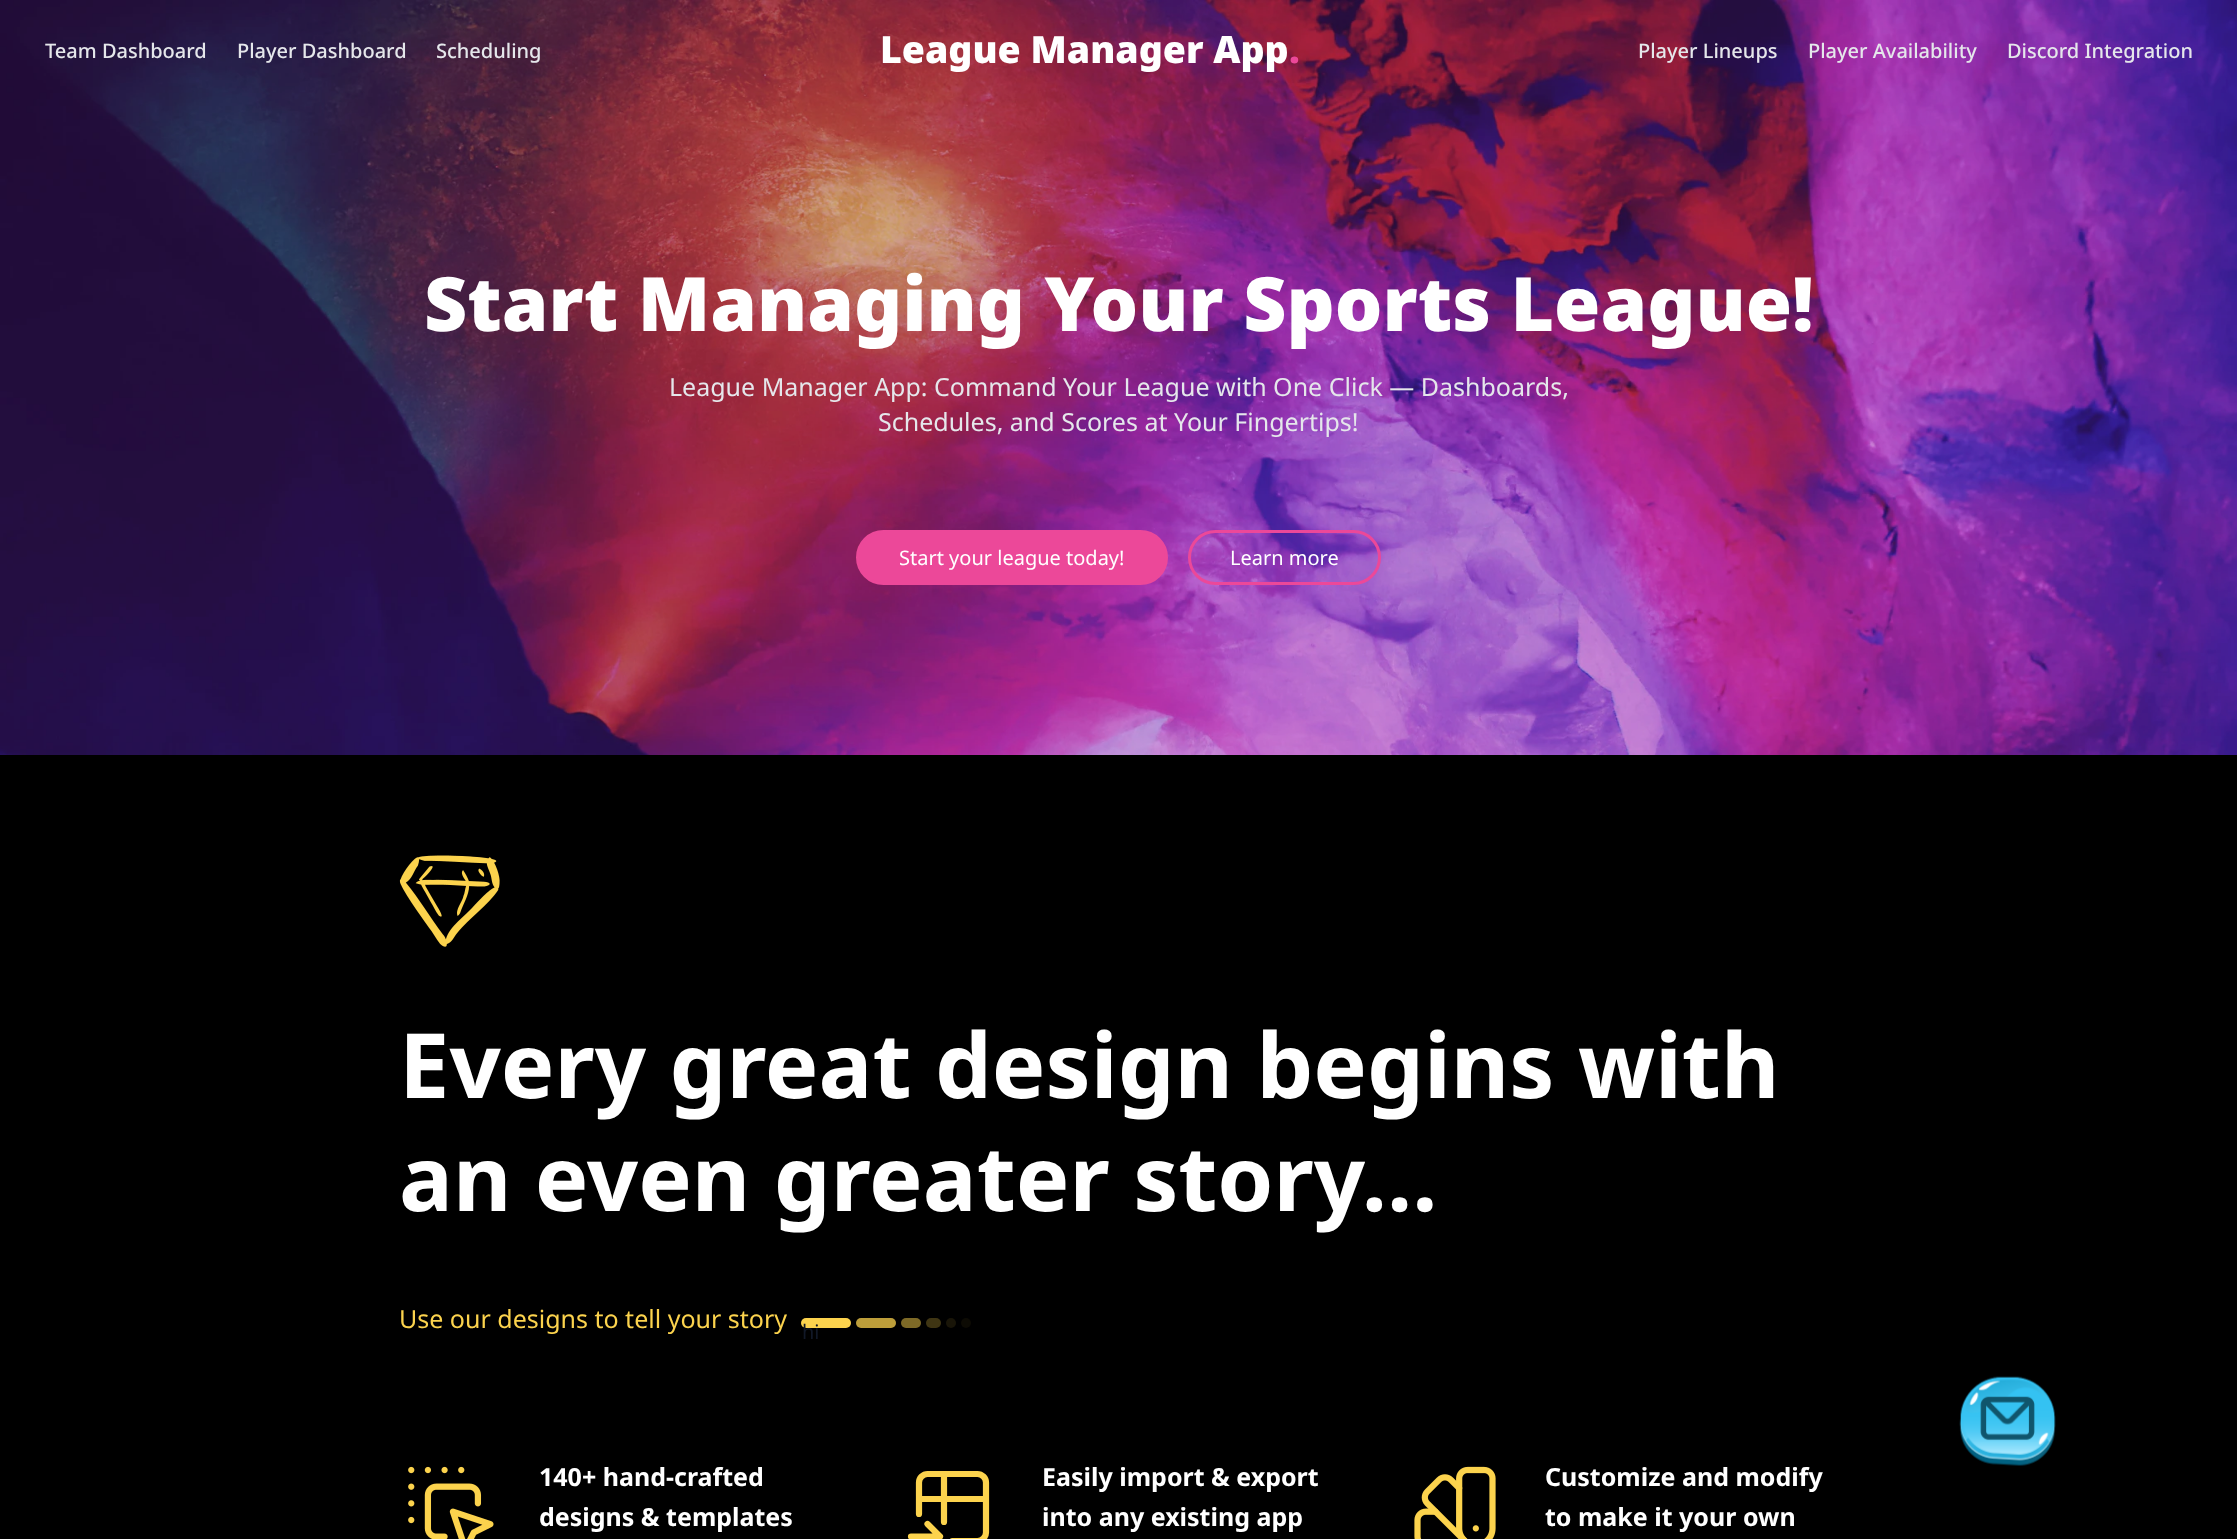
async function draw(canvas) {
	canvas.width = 2237;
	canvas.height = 1539;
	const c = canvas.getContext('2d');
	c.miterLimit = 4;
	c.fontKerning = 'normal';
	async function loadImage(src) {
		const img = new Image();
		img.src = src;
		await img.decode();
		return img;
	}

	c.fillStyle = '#000';
	c.fillRect(0, 0, 2237, 1539);
	c.drawImage(await loadImage('img1.png'), 0, 0, 2237, 755);
	c.font = '500 20px Noto Sans';
	c.fillStyle = '#e5e7eb';
	for (const [text, x, y] of [
		['Team Dashboard', 45, 58],
		['Player Dashboard', 237, 58],
		['Scheduling', 436, 58],
	]) {
		c.fillText(text, x, y);
	}
	c.font = '900 37.5px Noto Sans';
	c.fillStyle = '#fff';
	c.fillText('League Manager App', 880, 63);
	c.fillStyle = '#ec4899';
	c.fillText('.', 1289, 63);
	c.font = '500 20px Noto Sans';
	c.fillStyle = '#e5e7eb';
	for (const [text, x, y] of [
		['Player Lineups', 1638, 58],
		['Player Availability', 1808, 58],
		['Discord Integration', 2007, 58],
	]) {
		c.fillText(text, x, y);
	}
	c.font = '900 75px Noto Sans';
	c.fillStyle = '#fff';
	c.fillText('Start Managing Your Sports League!', 424, 331);
	c.font = '25px Noto Sans';
	c.fillStyle = '#e5e7eb';
	c.fillText('League Manager App: Command Your League with One Click — Dashboards,', 669, 396);
	c.fillText('Schedules, and Scores at Your Fingertips!', 878, 431);
	c.fillStyle = '#ec4899';
	c.beginPath();
	c.roundRect(857.5, 531.5, 309, 52, 26);
	c.fill();
	c.strokeStyle = '#ec4899';
	c.lineWidth = 3;
	c.stroke();
	c.font = '20px Noto Sans';
	c.fillStyle = '#fff';
	c.fillText('Start your league today!', 899, 565);
	c.beginPath();
	c.roundRect(1189.5, 531.5, 190, 52, 26);
	c.stroke();
	c.fillText('Learn more', 1230, 565);
	c.drawImage(await loadImage('img2.png'), 399, 855, 101, 92);
	c.font = 'bold 90px Noto Sans';
	c.fillText('Every great design begins with', 399, 1098);
	c.fillText('an even greater story...', 399, 1211);
	c.font = '25px Noto Sans';
	c.fillStyle = '#fcd34d';
	c.fillText('Use our designs to tell your story', 399, 1328);
	c.beginPath();
	c.roundRect(801, 1318, 50, 10, 5);
	c.fill();
	c.font = '20px Noto Sans';
	c.fillStyle = '#111827';
	c.fillText('hi', 802, 1339);
	c.fillStyle = '#bd9e3a';
	c.beginPath();
	c.roundRect(856, 1318, 40, 10, 5);
	c.fill();
	c.fillStyle = '#7e6a27';
	c.beginPath();
	c.roundRect(901, 1318, 20, 10, 5);
	c.fill();
	c.fillStyle = '#3f3513';
	c.beginPath();
	c.roundRect(926, 1318, 15, 10, 5);
	c.fill();
	c.fillStyle = '#191508';
	c.beginPath();
	c.arc(951, 1323, 5, 0, 2 * Math.PI);
	c.fill();
	c.fillStyle = '#0d0b04';
	c.beginPath();
	c.arc(966, 1323, 5, 0, 2 * Math.PI);
	c.fill();
	c.drawImage(await loadImage('img3.png'), 408, 1466, 86, 73);
	c.font = 'bold 25px Noto Sans';
	c.fillStyle = '#fff';
	c.fillText('140+ hand-crafted', 539, 1486);
	c.fillText('designs & templates', 539, 1526);
	c.beginPath();
	c.moveTo(919, 1514);
	c.lineTo(919, 1482.5);
	c.bezierCurveTo(919, 1478, 923, 1474, 927.5, 1474);
	c.lineTo(977.5, 1474);
	c.bezierCurveTo(982, 1474, 986, 1478, 986, 1482.5);
	c.lineTo(986, 1532.5);
	c.bezierCurveTo(986, 1537, 982, 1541, 977.5, 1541);
	c.lineTo(952.5, 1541);
	c.moveTo(919, 1499);
	c.lineTo(986, 1499);
	c.moveTo(944, 1474);
	c.lineTo(944, 1522);
	c.moveTo(911, 1536.5);
	c.lineTo(940, 1536.5);
	c.moveTo(927.5, 1524);
	c.lineTo(940, 1536.5);
	c.lineTo(927.5, 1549);
	c.strokeStyle = '#fcd34d';
	c.lineWidth = 6.2;
	c.lineCap = 'round';
	c.lineJoin = 'round';
	c.stroke();
	c.fillText('Easily import & export', 1042, 1486);
	c.fillText('into any existing app', 1042, 1526);
	c.drawImage(await loadImage('img4.png'), 1414, 1466, 82, 73);
	c.fillText('Customize and modify', 1545, 1486);
	c.fillText('to make it your own', 1545, 1526);
	c.drawImage(await loadImage('img5.png'), 1959, 1376, 97, 90);
}

draw(document.querySelector('canvas'));
